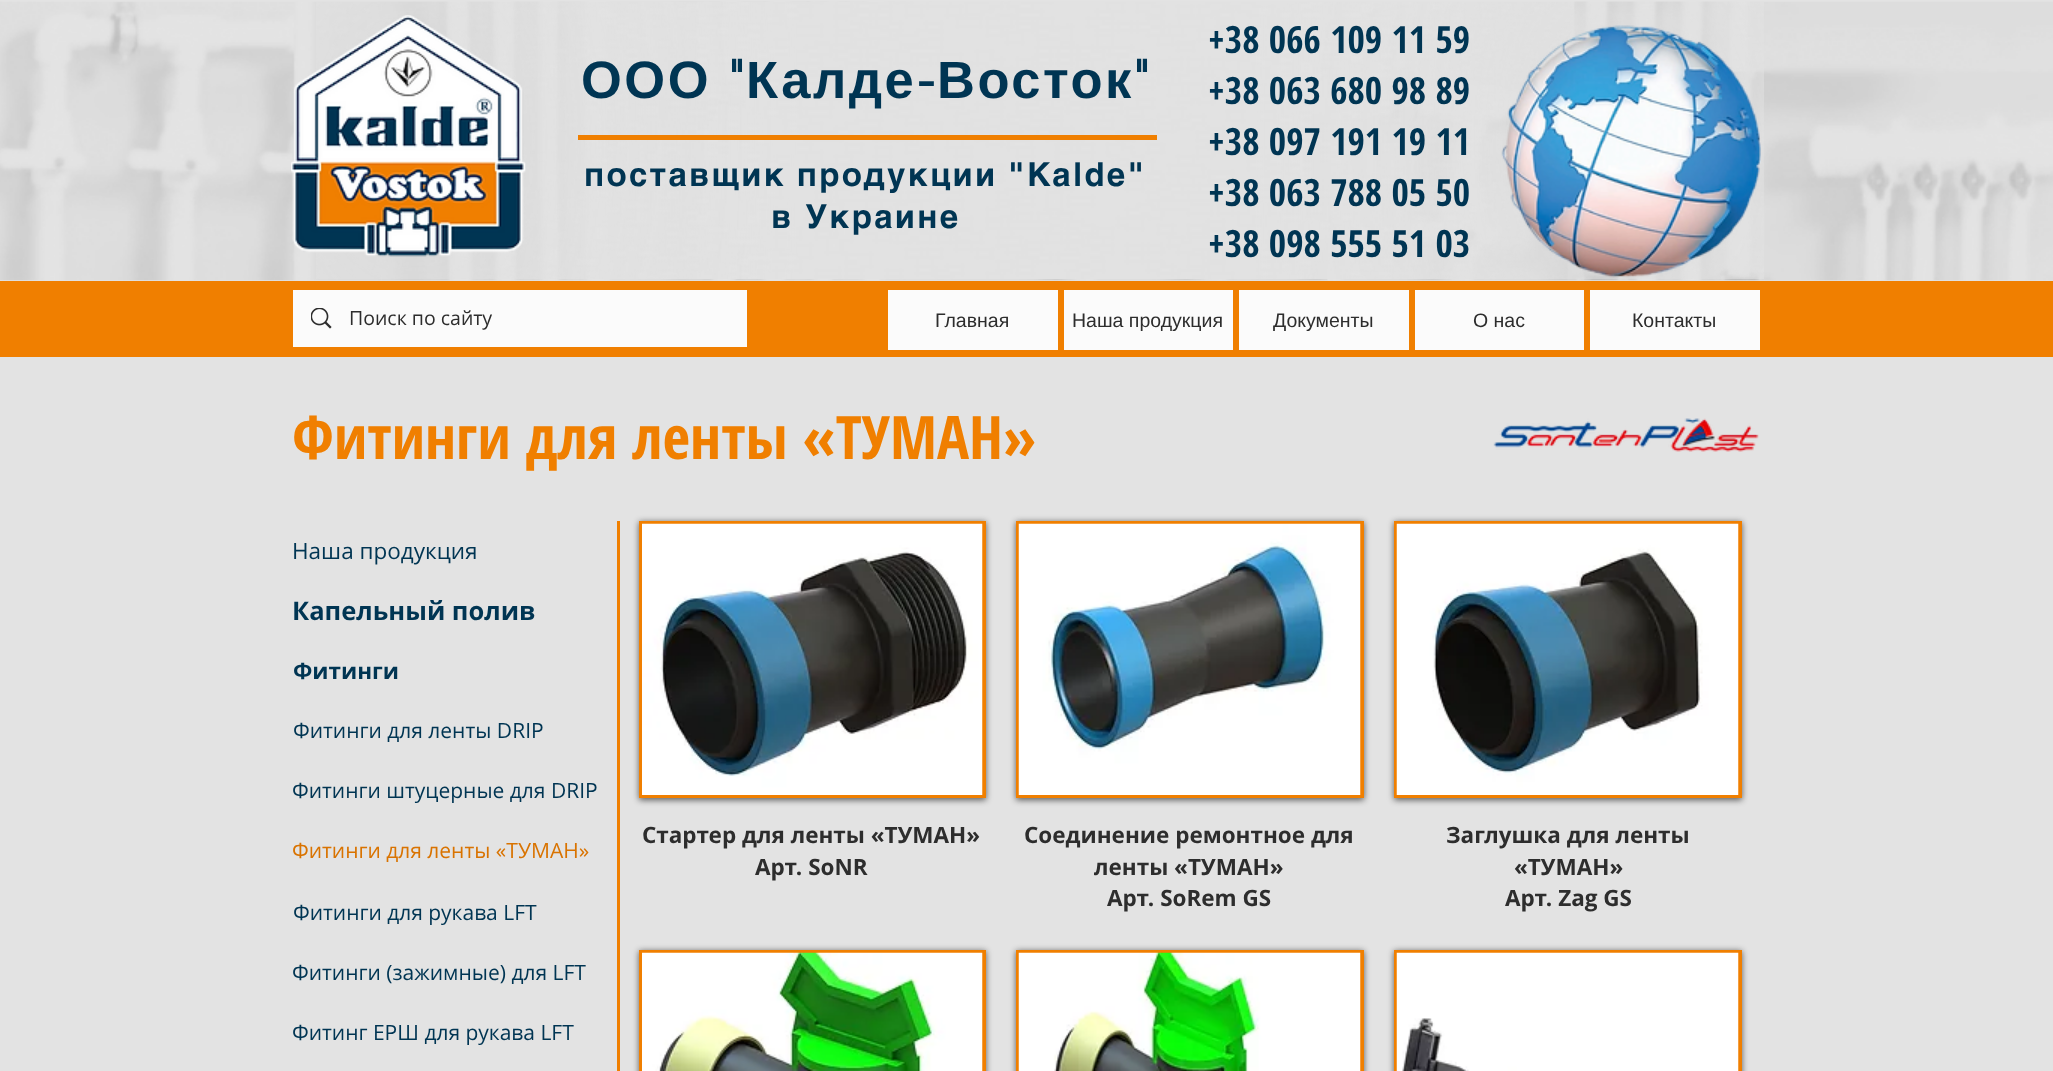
async function draw(canvas) {
	canvas.width = 2053;
	canvas.height = 1071;
	const c = canvas.getContext('2d');
	c.miterLimit = 4;
	c.fontKerning = 'normal';
	async function loadImage(src) {
		const img = new Image();
		img.src = src;
		await img.decode();
		return img;
	}

	c.fillStyle = '#e3e3e3';
	c.fillRect(0, 0, 2053, 1071);
	c.drawImage(await loadImage('img1.png'), 0, 1, 2053, 280);
	c.drawImage(await loadImage('img2.png'), 316, 2, 1448, 277);
	c.drawImage(await loadImage('img3.png'), 291, 15, 235, 242);
	c.letterSpacing = '2.5px';
	c.font = 'bold 52.5px Liberation Sans';
	c.fillStyle = '#003553';
	c.fillText('ООО', 581, 98);
	c.font = 'bold 52.5px helvetica';
	c.fillText('"', 729, 98);
	c.font = 'bold 52.5px Liberation Sans';
	c.fillText('Калде', 746, 98);
	c.font = 'bold 52.5px helvetica';
	c.fillText('-', 917, 98);
	c.font = 'bold 52.5px Liberation Sans';
	c.fillText('Восток', 937, 98);
	c.font = 'bold 52.5px helvetica';
	c.fillText('"', 1134, 98);
	c.letterSpacing = '0px';
	c.font = 'bold 37.5px Open Sans Condensed';
	for (const [text, x, y] of [
		['+38 066 109 11 59', 1208, 53],
		['+38 063 680 98 89', 1208, 104],
		['+38 097 191 19 11', 1208, 155],
		['+38 063 788 05 50', 1208, 206],
		['+38 098 555 51 03', 1208, 257],
	]) {
		c.fillText(text, x, y);
	}
	c.drawImage(await loadImage('img4.png'), 1501, 25, 260, 253);
	c.fillStyle = '#f07f00';
	c.fillRect(578, 135, 579, 5);
	c.letterSpacing = '2.3px';
	c.wordSpacing = '-1px';
	c.font = 'bold 33px "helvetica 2"';
	c.fillStyle = '#003553';
	c.fillText('поставщик продукции "Kalde"', 584, 186);
	c.wordSpacing = '0px';
	c.fillText('в Украине', 771, 228);
	c.fillStyle = '#f07f00';
	c.fillRect(0, 281, 2053, 76);
	c.fillStyle = '#fbfbfb';
	c.fillRect(293, 290, 454, 57);
	c.drawImage(await loadImage('img5.png'), 311, 308, 21, 21);
	c.letterSpacing = '0px';
	c.font = '19.5px Open Sans';
	c.fillStyle = '#2d2d2d';
	c.fillText('Поиск по сайту', 349, 325);
	c.fillStyle = '#fbfbfb';
	c.fillRect(888, 290, 170, 60);
	c.font = '19.5px Liberation Sans';
	c.fillStyle = '#2d2d2d';
	c.fillText('Главная', 935, 327);
	c.fillStyle = '#fbfbfb';
	c.fillRect(1064, 290, 169, 60);
	c.fillStyle = '#2d2d2d';
	c.fillText('Наша продукция', 1072, 327);
	c.fillStyle = '#fbfbfb';
	c.fillRect(1239, 290, 170, 60);
	c.fillStyle = '#2d2d2d';
	c.fillText('Документы', 1273, 327);
	c.fillStyle = '#fbfbfb';
	c.fillRect(1415, 290, 169, 60);
	c.fillStyle = '#2d2d2d';
	c.fillText('О нас', 1473, 327);
	c.fillStyle = '#fbfbfb';
	c.fillRect(1590, 290, 170, 60);
	c.fillStyle = '#2d2d2d';
	c.fillText('Контакты', 1632, 327);
	c.font = 'bold 60px Open Sans Condensed';
	c.fillStyle = '#f07f00';
	c.fillText('Фитинги для ленты «ТУМАН»', 292, 459);
	c.drawImage(await loadImage('img6.png'), 1493, 418, 266, 34);
	c.font = '22.5px Open Sans';
	c.fillStyle = '#003553';
	c.fillText('Наша продукция', 292, 559);
	c.fillStyle = '#f07f00';
	c.fillRect(617, 521, 3, 550);
	c.fillStyle = '#00000099';
	c.filter = 'blur(3px)';
	c.beginPath();
	c.rect(639, 522, 347, 278);
	c.fill();
	c.filter = 'none';
	c.fillStyle = '#f07f00';
	c.fillRect(639, 521, 347, 277);
	c.drawImage(await loadImage('img7.png'), 642, 523, 341, 272);
	c.fillStyle = '#00000099';
	c.filter = 'blur(3px)';
	c.beginPath();
	c.rect(1016, 522, 348, 278);
	c.fill();
	c.filter = 'none';
	c.fillStyle = '#f07f00';
	c.fillRect(1016, 521, 348, 277);
	c.drawImage(await loadImage('img8.png'), 1018, 523, 343, 272);
	c.fillStyle = '#00000099';
	c.filter = 'blur(3px)';
	c.beginPath();
	c.rect(1394, 522, 348, 278);
	c.fill();
	c.filter = 'none';
	c.fillStyle = '#f07f00';
	c.fillRect(1394, 521, 348, 277);
	c.drawImage(await loadImage('img9.png'), 1396, 523, 343, 272);
	c.font = 'bold 25.5px Open Sans';
	c.fillStyle = '#003553';
	c.fillText('Капельный полив', 292, 620);
	c.font = 'bold 22.5px Open Sans';
	c.fillText('Фитинги', 293, 679);
	c.font = '21px Open Sans';
	c.fillText('Фитинги для ленты DRIP', 293, 738);
	c.fillText('Фитинги штуцерные для DRIP', 292, 798);
	c.fillStyle = '#d97300';
	c.fillText('Фитинги для ленты «ТУМАН»', 292, 858);
	c.font = 'bold 22.5px Open Sans';
	c.fillStyle = '#2d2d2d';
	for (const [text, x, y] of [
		['Стартер для ленты «ТУМАН»', 642, 843],
		['Арт. SoNR', 755, 875],
		['Соединение ремонтное для', 1024, 843],
		['ленты «ТУМАН»', 1094, 875],
		['Арт. SoRem GS', 1107, 906],
		['Заглушка для ленты', 1446, 843],
		['«ТУМАН»', 1514, 875],
		['Арт. Zag GS', 1505, 906],
	]) {
		c.fillText(text, x, y);
	}
	c.font = '21px Open Sans';
	c.fillStyle = '#003553';
	c.fillText('Фитинги для рукава LFT', 293, 920);
	c.fillText('Фитинги (зажимные) для LFT', 292, 980);
	c.fillStyle = '#00000099';
	c.filter = 'blur(3px)';
	c.beginPath();
	c.rect(639, 951, 347, 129);
	c.fill();
	c.filter = 'none';
	c.fillStyle = '#f07f00';
	c.fillRect(639, 950, 347, 121);
	c.drawImage(await loadImage('img10.png'), 642, 952, 341, 119);
	c.fillStyle = '#00000099';
	c.filter = 'blur(3px)';
	c.beginPath();
	c.rect(1016, 951, 348, 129);
	c.fill();
	c.filter = 'none';
	c.fillStyle = '#f07f00';
	c.fillRect(1016, 950, 348, 121);
	c.drawImage(await loadImage('img11.png'), 1018, 952, 343, 119);
	c.fillStyle = '#00000099';
	c.filter = 'blur(3px)';
	c.beginPath();
	c.rect(1394, 951, 348, 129);
	c.fill();
	c.filter = 'none';
	c.fillStyle = '#f07f00';
	c.fillRect(1394, 950, 348, 121);
	c.drawImage(await loadImage('img12.png'), 1396, 952, 343, 119);
	c.fillStyle = '#003553';
	c.fillText('Фитинг ЕРШ для рукава LFT', 292, 1040);
}

draw(document.querySelector('canvas'));
